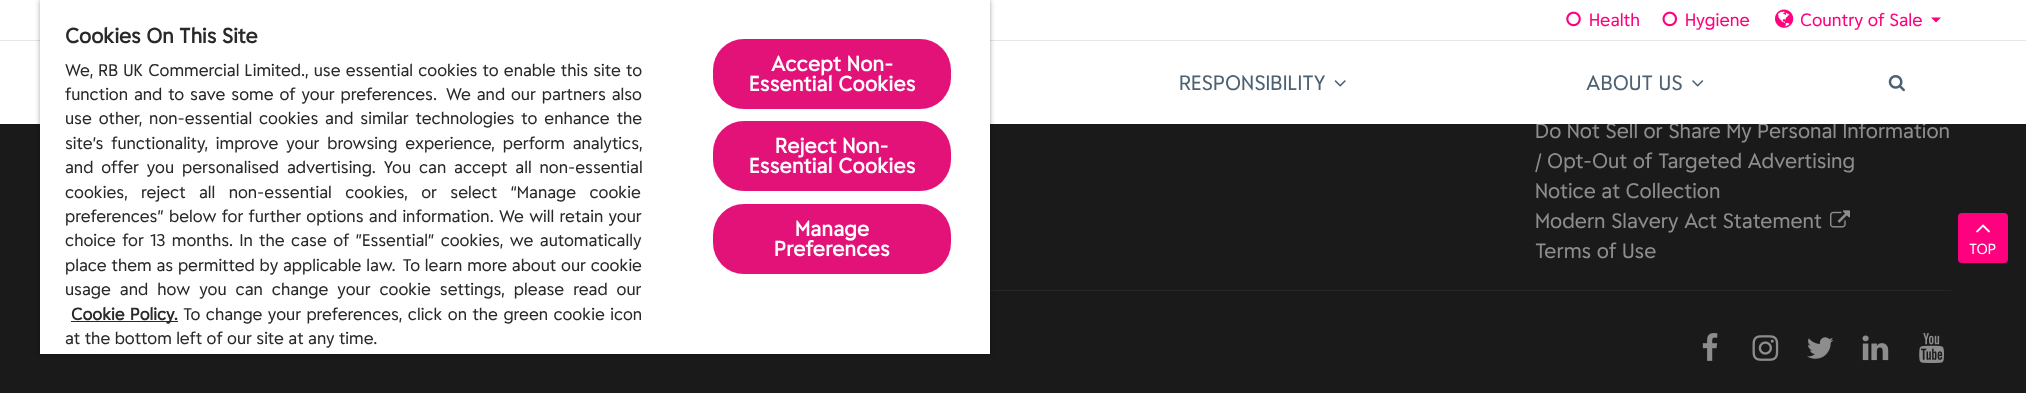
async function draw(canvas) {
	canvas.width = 2026;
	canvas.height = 393;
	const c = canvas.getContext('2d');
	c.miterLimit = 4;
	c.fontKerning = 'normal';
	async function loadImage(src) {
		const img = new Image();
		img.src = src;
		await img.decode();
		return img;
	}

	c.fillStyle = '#1a1a1a';
	c.fillRect(0, 0, 2026, 393);
	c.fillStyle = '#fff';
	c.fillRect(0, 0, 2026, 40);
	c.fillStyle = '#e6e6e6';
	c.fillRect(0, 40, 2026, 1);
	c.font = '20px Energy';
	c.fillStyle = '#8d8d8d';
	c.fillText('Do Not Sell or Share My Personal Information', 1535, 138);
	c.fillStyle = '#fff';
	c.fillRect(0, 41, 2026, 83);
	c.fillStyle = '#262626';
	c.fillRect(990, 290, 961, 1);
	c.fillStyle = '#00000059';
	c.filter = 'blur(2.5px)';
	c.beginPath();
	c.rect(40, 0, 950, 354);
	c.fill();
	c.filter = 'none';
	c.fillStyle = '#fff';
	c.fillRect(40, 0, 950, 354);
	c.font = 'bold 20px Energy';
	c.fillStyle = '#292929';
	c.fillText('Cookies On This Site', 65, 43);
	c.wordSpacing = '0.75px';
	c.font = '16.25px Energy';
	c.fillText('We, RB UK Commercial Limited., use essential cookies to enable this site to', 65, 76);
	c.wordSpacing = '1.5px';
	c.fillText('function and to save some of your preferences.', 65, 100);
	c.fillText('We and our partners also', 446, 100);
	c.wordSpacing = '2.5px';
	c.fillText('use other, non-essential cookies and similar technologies to enhance the', 65, 124);
	c.wordSpacing = '3.5px';
	c.fillText('site’s functionality, improve your browsing experience, perform analytics,', 65, 149);
	c.fillText('and offer you personalised advertising. You can accept all non-essential', 65, 173);
	c.wordSpacing = '9px';
	c.fillText('cookies, reject all non-essential cookies, or select “Manage cookie', 65, 198);
	c.wordSpacing = '0.9px';
	c.fillText('preferences” below for further options and information. We will retain your', 65, 222);
	c.wordSpacing = '2px';
	c.fillText('choice for 13 months. In the case of ”Essential” cookies, we automatically', 65, 246);
	c.wordSpacing = '0.4px';
	c.fillText('place them as permitted by applicable law.  To learn more about our cookie', 65, 271);
	c.wordSpacing = '4.6px';
	c.fillText('usage and how you can change your cookie settings, please read our', 65, 295);
	c.fillRect(71, 321, 107, 1);
	c.wordSpacing = '1px';
	c.font = 'bold 16.25px Energy';
	c.fillText('Cookie Policy.', 71, 320);
	c.font = '16.25px Energy';
	c.fillText('To change your preferences, click on the green cookie icon', 183, 320);
	c.wordSpacing = '0px';
	c.fillText('at the bottom left of our site at any time.', 65, 344);
	c.fillStyle = '#e31279';
	c.beginPath();
	c.roundRect(713, 39, 238, 70, 31);
	c.fill();
	c.letterSpacing = '0.25px';
	c.font = 'bold 20px Energy';
	c.fillStyle = '#fff';
	c.fillText('Accept Non-', 771, 71);
	c.fillText('Essential Cookies', 749, 91);
	c.fillStyle = '#e31279';
	c.beginPath();
	c.roundRect(713, 121, 238, 70, 31);
	c.fill();
	c.fillStyle = '#fff';
	c.fillText('Reject Non-', 775, 153);
	c.fillText('Essential Cookies', 749, 173);
	c.fillStyle = '#e31279';
	c.beginPath();
	c.roundRect(713, 204, 238, 70, 31);
	c.fill();
	c.fillStyle = '#fff';
	c.fillText('Manage', 795, 236);
	c.fillText('Preferences', 774, 256);
	c.drawImage(await loadImage('img1.png'), 1566, 11, 15, 16);
	c.letterSpacing = '0px';
	c.font = '17px Energy';
	c.fillStyle = '#ff007f';
	c.fillText('Health', 1589, 26);
	c.drawImage(await loadImage('img2.png'), 1662, 11, 16, 16);
	c.fillText('Hygiene', 1685, 26);
	c.drawImage(await loadImage('img3.png'), 1775, 9, 19, 19);
	c.fillText('Country of Sale', 1800, 26);
	c.beginPath();
	c.moveTo(1931, 17.5);
	c.lineTo(1941, 17.5);
	c.lineTo(1936, 22.5);
	c.closePath();
	c.fill();
	c.font = '20px Energy';
	c.fillStyle = '#4c6172';
	c.fillText('RESPONSIBILITY', 1179, 90);
	c.drawImage(await loadImage('img4.png'), 1334, 80, 12, 7);
	c.fillText('ABOUT US', 1586, 90);
	c.drawImage(await loadImage('img5.png'), 1692, 80, 12, 7);
	c.drawImage(await loadImage('img6.png'), 1888, 75, 17, 17);
	c.fillStyle = '#8d8d8d';
	for (const [text, x, y] of [
		['/ Opt-Out of Targeted Advertising', 1535, 168],
		['Notice at Collection', 1535, 198],
		['Modern Slavery Act Statement', 1535, 228],
	]) {
		c.fillText(text, x, y);
	}
	c.drawImage(await loadImage('img7.png'), 1830, 210, 20, 18);
	c.fillText('Terms of Use', 1535, 258);
	c.drawImage(await loadImage('img8.png'), 1702, 333, 16, 28);
	c.drawImage(await loadImage('img9.png'), 1752, 335, 27, 26);
	c.drawImage(await loadImage('img10.png'), 1807, 337, 27, 22);
	c.drawImage(await loadImage('img11.png'), 1862, 335, 27, 26);
	c.drawImage(await loadImage('img12.png'), 1919, 333, 25, 30);
	c.fillStyle = '#ff007f';
	c.beginPath();
	c.roundRect(1958, 213, 50, 50, 4);
	c.fill();
	c.drawImage(await loadImage('img13.png'), 1976, 224, 14, 9);
	c.font = '14px Energy';
	c.fillStyle = '#fff';
	c.fillText('TOP', 1969, 254);
}

draw(document.querySelector('canvas'));
